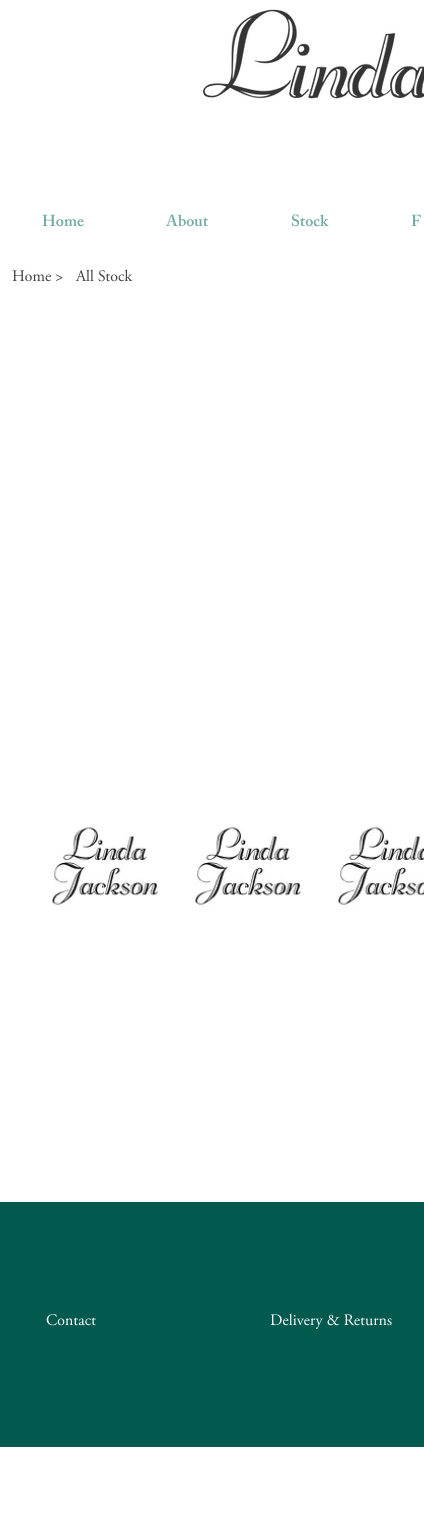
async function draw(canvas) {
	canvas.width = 424;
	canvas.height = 1516;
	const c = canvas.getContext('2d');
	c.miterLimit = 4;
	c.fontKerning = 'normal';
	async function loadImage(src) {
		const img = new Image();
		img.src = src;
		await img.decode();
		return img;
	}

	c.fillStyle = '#fff';
	c.fillRect(0, 0, 424, 1516);
	c.drawImage(await loadImage('img1.png'), 202, 9, 222, 90);
	c.font = '600 16px "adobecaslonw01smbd"';
	c.fillStyle = '#74aca5';
	for (const [text, x, y] of [
		['Home', 42, 226],
		['About', 166, 226],
		['Stock', 291, 226],
		['F', 411, 226],
	]) {
		c.fillText(text, x, y);
	}
	c.drawImage(await loadImage('img2.png'), 12, 270, 51, 12);
	c.drawImage(await loadImage('img3.png'), 75, 269, 58, 13);
	c.drawImage(await loadImage('img4.png'), 51, 826, 107, 82);
	c.drawImage(await loadImage('img4.png'), 194, 826, 107, 82);
	c.drawImage(await loadImage('img5.png'), 337, 826, 87, 82);
	c.fillStyle = '#02594e';
	c.fillRect(0, 1202, 424, 245);
	c.drawImage(await loadImage('img6.png'), 46, 1314, 50, 12);
	c.drawImage(await loadImage('img7.png'), 270, 1313, 122, 16);
}

draw(document.querySelector('canvas'));
